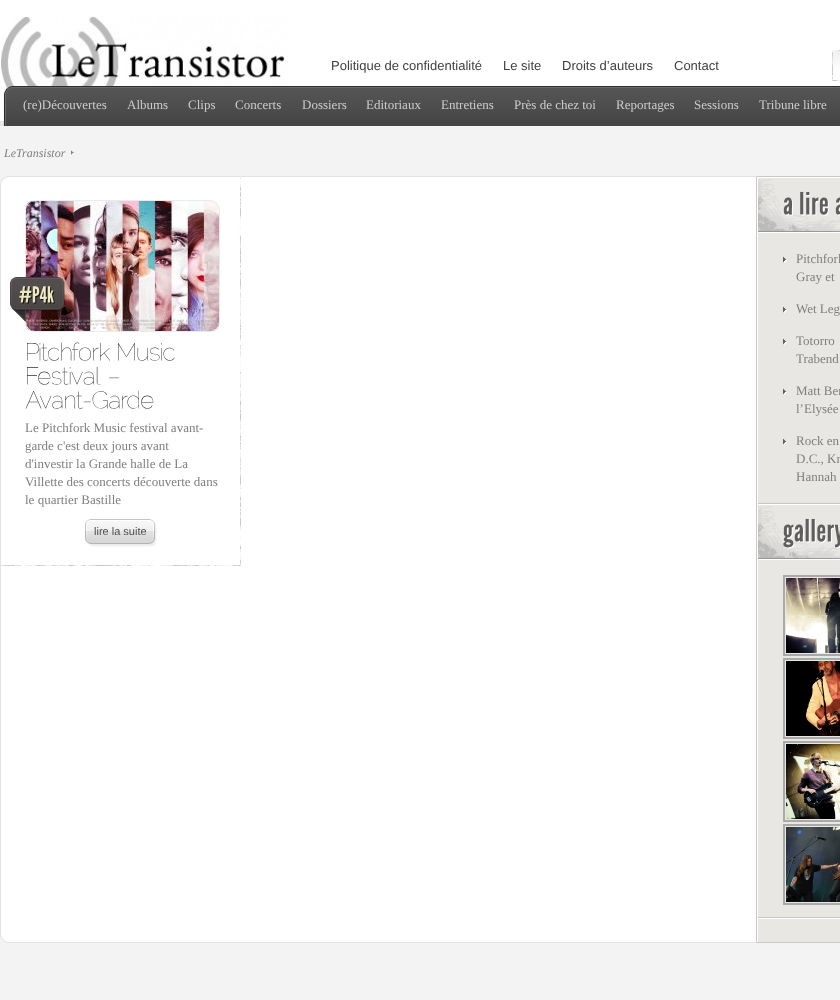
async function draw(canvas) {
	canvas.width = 840;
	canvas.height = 1000;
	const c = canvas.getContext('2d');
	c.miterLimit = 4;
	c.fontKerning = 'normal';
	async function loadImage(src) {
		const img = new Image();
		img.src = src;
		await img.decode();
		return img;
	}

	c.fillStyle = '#f3f3f3';
	c.fillRect(0, 0, 840, 1000);
	c.fillStyle = '#fff';
	c.fillRect(0, 0, 840, 121);
	c.fillStyle = '#e9e7e3';
	c.fillRect(0, 121, 4, 5);
	c.drawImage(await loadImage('img1.png'), 1, 15, 287, 95);
	c.font = '13px Liberation Sans';
	c.fillStyle = '#404040';
	for (const [text, x, y] of [
		['Politique de confidentialité', 331, 70],
		['Le site', 503, 70],
		['Droits d’auteurs', 562, 70],
		['Contact', 674, 70],
	]) {
		c.fillText(text, x, y);
	}
	c.drawImage(await loadImage('img2.png'), 832, 50, 8, 31);
	c.drawImage(await loadImage('img3.png'), 3, 86, 837, 40);
	c.font = '13px Liberation Serif';
	c.fillStyle = '#ccc';
	for (const [text, x, y] of [
		['(re)Découvertes', 23, 109],
		['Albums', 127, 109],
		['Clips', 188, 109],
		['Concerts', 235, 109],
		['Dossiers', 302, 109],
		['Editoriaux', 366, 109],
		['Entretiens', 441, 109],
		['Près de chez toi', 514, 109],
		['Reportages', 616, 109],
		['Sessions', 694, 109],
		['Tribune libre', 759, 109],
	]) {
		c.fillText(text, x, y);
	}
	c.font = 'italic 12px Liberation Serif';
	c.fillStyle = '#807f7f';
	c.fillText('LeTransistor', 4, 157);
	c.drawImage(await loadImage('img4.png'), 71, 150, 3, 5);
	c.drawImage(await loadImage('img5.png'), 0, 176, 840, 8);
	c.drawImage(await loadImage('img6.png'), 0, 184, 840, 750);
	c.drawImage(await loadImage('img7.png'), 240, 176, 1, 390);
	c.drawImage(await loadImage('img8.png'), 1, 565, 239, 1);
	c.drawImage(await loadImage('img9.png'), 26, 201, 193, 130);
	c.beginPath();
	c.roundRect(25.5, 200.5, 194, 131, 9.5);
	c.strokeStyle = '#ebebeb';
	c.stroke();
	c.drawImage(await loadImage('img10.png'), 55, 277, 10, 34);
	c.drawImage(await loadImage('img11.png'), 10, 277, 45, 45);
	c.drawImage(await loadImage('img12.png'), 19, 286, 36, 18);
	c.drawImage(await loadImage('img13.png'), 27, 342, 83, 19);
	c.drawImage(await loadImage('img14.png'), 118, 343, 57, 18);
	c.drawImage(await loadImage('img15.png'), 27, 366, 74, 19);
	c.drawImage(await loadImage('img16.png'), 109, 377, 10, 2);
	c.drawImage(await loadImage('img17.png'), 25, 390, 129, 19);
	c.font = '13px Liberation Serif';
	for (const [text, x, y] of [
		['Le Pitchfork Music festival avant-', 25, 432],
		['garde c\'est deux jours avant', 25, 450],
		['d\'investir la Grande halle de La', 25, 468],
		['Villette des concerts découverte dans', 25, 486],
		['le quartier Bastille', 25, 504],
	]) {
		c.fillText(text, x, y);
	}
	c.drawImage(await loadImage('img18.png'), 147, 519, 10, 28);
	c.drawImage(await loadImage('img19.png'), 85, 519, 62, 28);
	c.font = '11px Liberation Sans';
	c.fillStyle = '#4e4e4d';
	c.fillText('lire la suite', 94, 535);
	c.drawImage(await loadImage('img20.png'), 758, 503, 82, 2);
	c.drawImage(await loadImage('img21.png'), 758, 179, 82, 54);
	c.drawImage(await loadImage('img22.png'), 783, 197, 10, 19);
	c.drawImage(await loadImage('img23.png'), 800, 191, 29, 25);
	c.drawImage(await loadImage('img24.png'), 835, 197, 5, 19);
	c.drawImage(await loadImage('img25.png'), 783, 256, 4, 7);
	c.font = '13px Liberation Serif';
	c.fillStyle = '#807f7f';
	c.fillText('Pitchfork', 796, 263);
	c.fillText('Gray et', 796, 281);
	c.drawImage(await loadImage('img25.png'), 783, 306, 4, 7);
	c.fillText('Wet Leg', 796, 313);
	c.drawImage(await loadImage('img25.png'), 783, 338, 4, 7);
	c.fillText('Totorro', 796, 345);
	c.fillText('Trabend', 796, 363);
	c.drawImage(await loadImage('img25.png'), 783, 388, 4, 7);
	c.fillText('Matt Ber', 796, 395);
	c.fillText('l’Elysée', 796, 413);
	c.drawImage(await loadImage('img25.png'), 783, 438, 4, 7);
	for (const [text, x, y] of [
		['Rock en', 796, 445],
		['D.C., Kn', 796, 463],
		['Hannah', 796, 481],
	]) {
		c.fillText(text, x, y);
	}
	c.drawImage(await loadImage('img20.png'), 758, 917, 82, 2);
	c.drawImage(await loadImage('img21.png'), 758, 506, 82, 54);
	c.drawImage(await loadImage('img26.png'), 783, 518, 57, 31);
	c.strokeStyle = '#a9a9a9';
	c.lineWidth = 2;
	c.strokeRect(784, 576, 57, 79);
	c.drawImage(await loadImage('img27.png'), 786, 578, 54, 75);
	c.strokeRect(784, 659, 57, 79);
	c.drawImage(await loadImage('img28.png'), 786, 661, 54, 75);
	c.strokeRect(784, 742, 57, 79);
	c.drawImage(await loadImage('img29.png'), 786, 744, 54, 75);
	c.strokeRect(784, 825, 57, 79);
	c.drawImage(await loadImage('img30.png'), 786, 827, 54, 75);
	c.drawImage(await loadImage('img31.png'), 0, 934, 840, 9);
}

draw(document.querySelector('canvas'));
